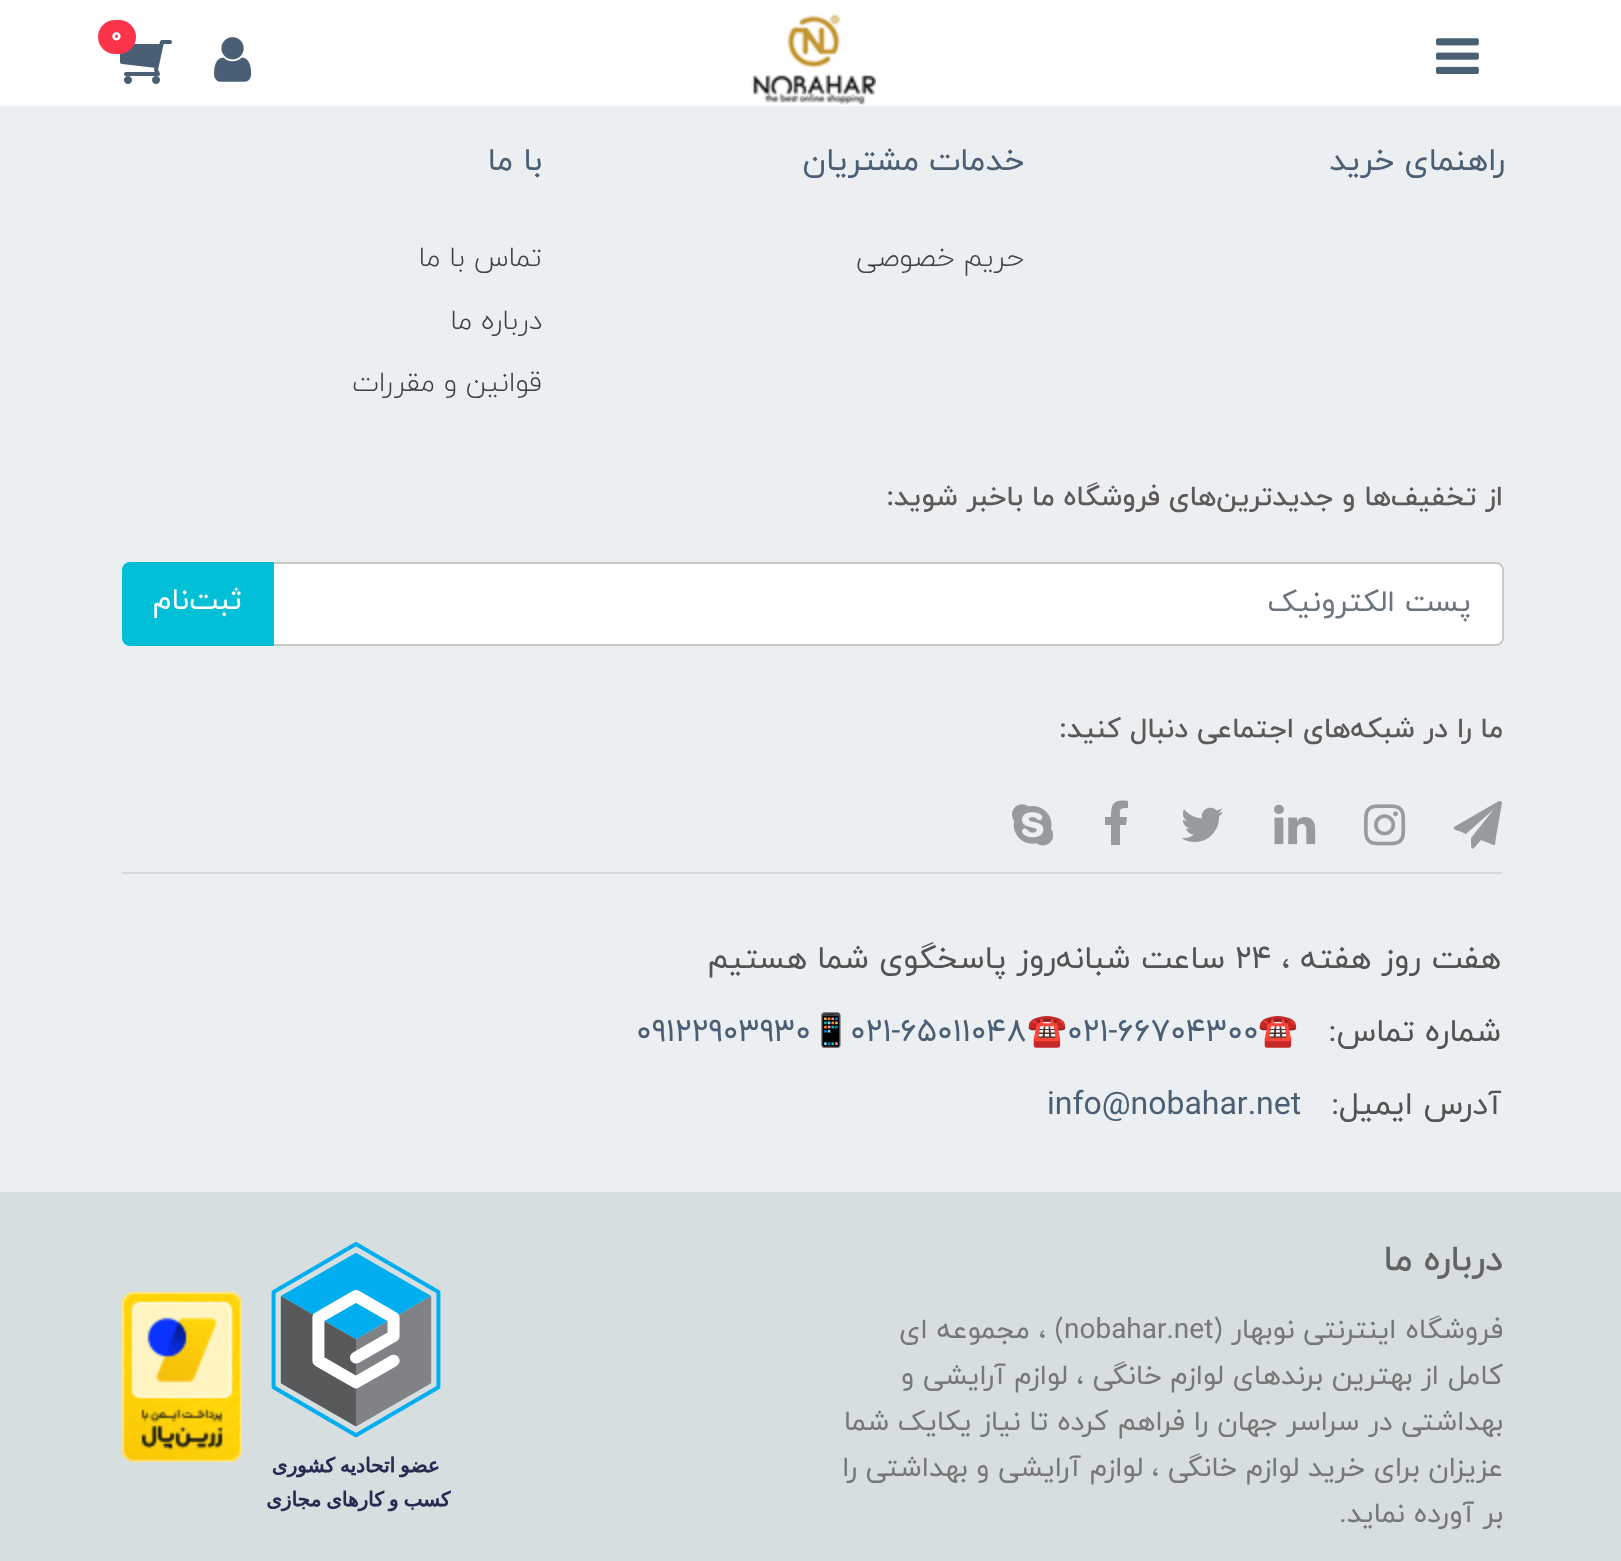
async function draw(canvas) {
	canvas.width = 1621;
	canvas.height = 1561;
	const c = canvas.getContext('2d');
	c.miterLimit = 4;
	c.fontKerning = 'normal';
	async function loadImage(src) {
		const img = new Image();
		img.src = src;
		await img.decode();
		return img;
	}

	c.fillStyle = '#eceff1';
	c.fillRect(0, 0, 1621, 1561);
	c.fillStyle = '#fff';
	c.fillRect(0, 0, 1621, 106);
	c.drawImage(await loadImage('img1.png'), 751, 13, 125, 92);
	c.drawImage(await loadImage('img2.png'), 214, 37, 38, 45);
	c.drawImage(await loadImage('img3.png'), 120, 40, 52, 44);
	c.fillStyle = '#fb3449';
	c.beginPath();
	c.roundRect(98, 20, 38, 34, 17);
	c.fill();
	c.font = 'bold 22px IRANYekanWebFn';
	c.fillStyle = '#fff';
	c.fillText('0', 111, 42);
	c.drawImage(await loadImage('img4.png'), 1436, 38, 43, 36);
	c.fillStyle = '#cfd8dc';
	c.fillRect(122, 872, 1380, 2);
	c.direction = 'rtl';
	c.font = '32px IRANYekanWebFn';
	c.fillStyle = '#4a5f73';
	c.fillText('راهنمای خرید', 1505, 170);
	c.fillText('خدمات مشتریان', 1024, 170);
	c.font = '300 28px IRANYekanWebFn';
	c.fillStyle = '#404040';
	c.fillText('حریم خصوصی', 1024, 266);
	c.font = '32px IRANYekanWebFn';
	c.fillStyle = '#4a5f73';
	c.fillText('با ما', 542, 170);
	c.font = '300 28px IRANYekanWebFn';
	c.fillStyle = '#404040';
	for (const [text, x, y] of [
		['تماس با ما', 542, 266],
		['درباره ما', 542, 329],
		['قوانین و مقررات', 542, 391],
	]) {
		c.fillText(text, x, y);
	}
	c.font = '500 28px IRANYekanWebFn';
	c.fillStyle = '#5d5959';
	c.fillText('از تخفیف‌ها و جدیدترین‌های فروشگاه ما باخبر شوید:', 1503, 505);
	c.fillStyle = '#fff';
	c.beginPath();
	c.roundRect(273, 563, 1230, 82, [0, 7, 7, 0]);
	c.fill();
	c.strokeStyle = '#c8c8c8';
	c.lineWidth = 2;
	c.stroke();
	c.font = '30px IRANYekanWebFn';
	c.fillStyle = '#6c757d';
	c.fillText('پست الکترونیک', 1471, 611);
	c.fillStyle = '#00bfd6';
	c.beginPath();
	c.roundRect(123, 563, 150, 82, [7, 0, 0, 7]);
	c.fill();
	c.strokeStyle = '#00bfd6';
	c.stroke();
	c.fillStyle = '#fff';
	c.fillText('ثبت‌نام', 242, 609);
	c.font = '500 28px IRANYekanWebFn';
	c.fillStyle = '#5d5959';
	c.fillText('ما را در شبکه‌های اجتماعی دنبال کنید:', 1503, 737);
	c.fillStyle = '#979ba0';
	c.beginPath();
	c.moveTo(1501, 801);
	c.lineTo(1502, 803);
	c.lineTo(1496, 837);
	c.bezierCurveTo(1495, 844, 1496, 847, 1491, 844);
	c.lineTo(1481, 840);
	c.bezierCurveTo(1471, 852, 1471, 852, 1471, 838);
	c.lineTo(1494, 809);
	c.lineTo(1466, 834);
	c.lineTo(1459, 831);
	c.bezierCurveTo(1458, 831, 1452, 829, 1454, 827);
	c.lineTo(1499, 801);
	c.closePath();
	c.fill();
	c.drawImage(await loadImage('img5.png'), 1364, 804, 42, 42);
	c.drawImage(await loadImage('img6.png'), 1274, 804, 42, 41);
	c.drawImage(await loadImage('img7.png'), 1181, 807, 42, 35);
	c.beginPath();
	c.moveTo(1128, 801);
	c.lineTo(1128, 808);
	c.bezierCurveTo(1119, 808, 1120, 809, 1120, 817);
	c.lineTo(1127, 817);
	c.lineTo(1126, 825);
	c.lineTo(1120, 825);
	c.lineTo(1120, 845);
	c.lineTo(1111, 845);
	c.lineTo(1111, 825);
	c.lineTo(1105, 825);
	c.lineTo(1105, 817);
	c.lineTo(1111, 817);
	c.bezierCurveTo(1111, 804, 1113, 799, 1128, 801);
	c.closePath();
	c.fill();
	c.drawImage(await loadImage('img8.png'), 1012, 804, 42, 42);
	c.font = '32px IRANYekanWebFn';
	c.fillStyle = '#535353';
	c.fillText('هفت روز هفته ،', 1501, 968);
	c.direction = 'ltr';
	c.fillText('۲۴', 1235, 968);
	c.direction = 'rtl';
	c.fillText('ساعت شبانه‌روز پاسخگوی شما هستیم', 1225, 968);
	c.fillText('شماره تماس:', 1501, 1041);
	c.direction = 'ltr';
	c.font = '32px Noto Color Emoji';
	c.fillStyle = '#4a5f73';
	c.fillText('☎️', 1258, 1041);
	c.font = '32px IRANYekanWebFn';
	c.fillText('021-66704300', 1067, 1041);
	c.font = '32px Noto Color Emoji';
	c.fillText('☎️', 1027, 1041);
	c.font = '32px IRANYekanWebFn';
	c.fillText('021-65011048', 850, 1041);
	c.font = '32px Noto Color Emoji';
	c.fillText('📱', 811, 1041);
	c.font = '32px IRANYekanWebFn';
	c.fillText('09122903930', 636, 1041);
	c.direction = 'rtl';
	c.fillStyle = '#535353';
	c.fillText('آدرس ایمیل:', 1501, 1114);
	c.direction = 'ltr';
	c.fillStyle = '#4a5f73';
	c.fillText('info@nobahar.net', 1047, 1114);
	c.fillStyle = '#d7dee0';
	c.fillRect(0, 1192, 1621, 369);
	c.direction = 'rtl';
	c.font = '500 36px IRANYekanWebFn';
	c.fillStyle = '#636363';
	c.fillText('درباره ما', 1503, 1270);
	c.font = '28px IRANYekanWebFn';
	c.fillStyle = '#777';
	c.fillText('فروشگاه اینترنتی نوبهار (', 1503, 1338);
	c.direction = 'ltr';
	c.fillText('nobahar.net', 1064, 1338);
	c.direction = 'rtl';
	for (const [text, x, y] of [
		[') ، مجموعه ای', 1064, 1338],
		['کامل از بهترین برندهای لوازم خانگی ، لوازم آرایشی و', 1503, 1384],
		['بهداشتی در سراسر جهان را فراهم کرده تا نیاز یکایک شما', 1503, 1430],
		['عزیزان برای خرید لوازم خانگی ، لوازم آرایشی و بهداشتی را', 1503, 1476],
		['بر آورده نماید.', 1503, 1522],
	]) {
		c.fillText(text, x, y);
	}
	c.drawImage(await loadImage('img9.png'), 267, 1242, 184, 270);
	c.drawImage(await loadImage('img10.png'), 122, 1292, 120, 170);
}

draw(document.querySelector('canvas'));
